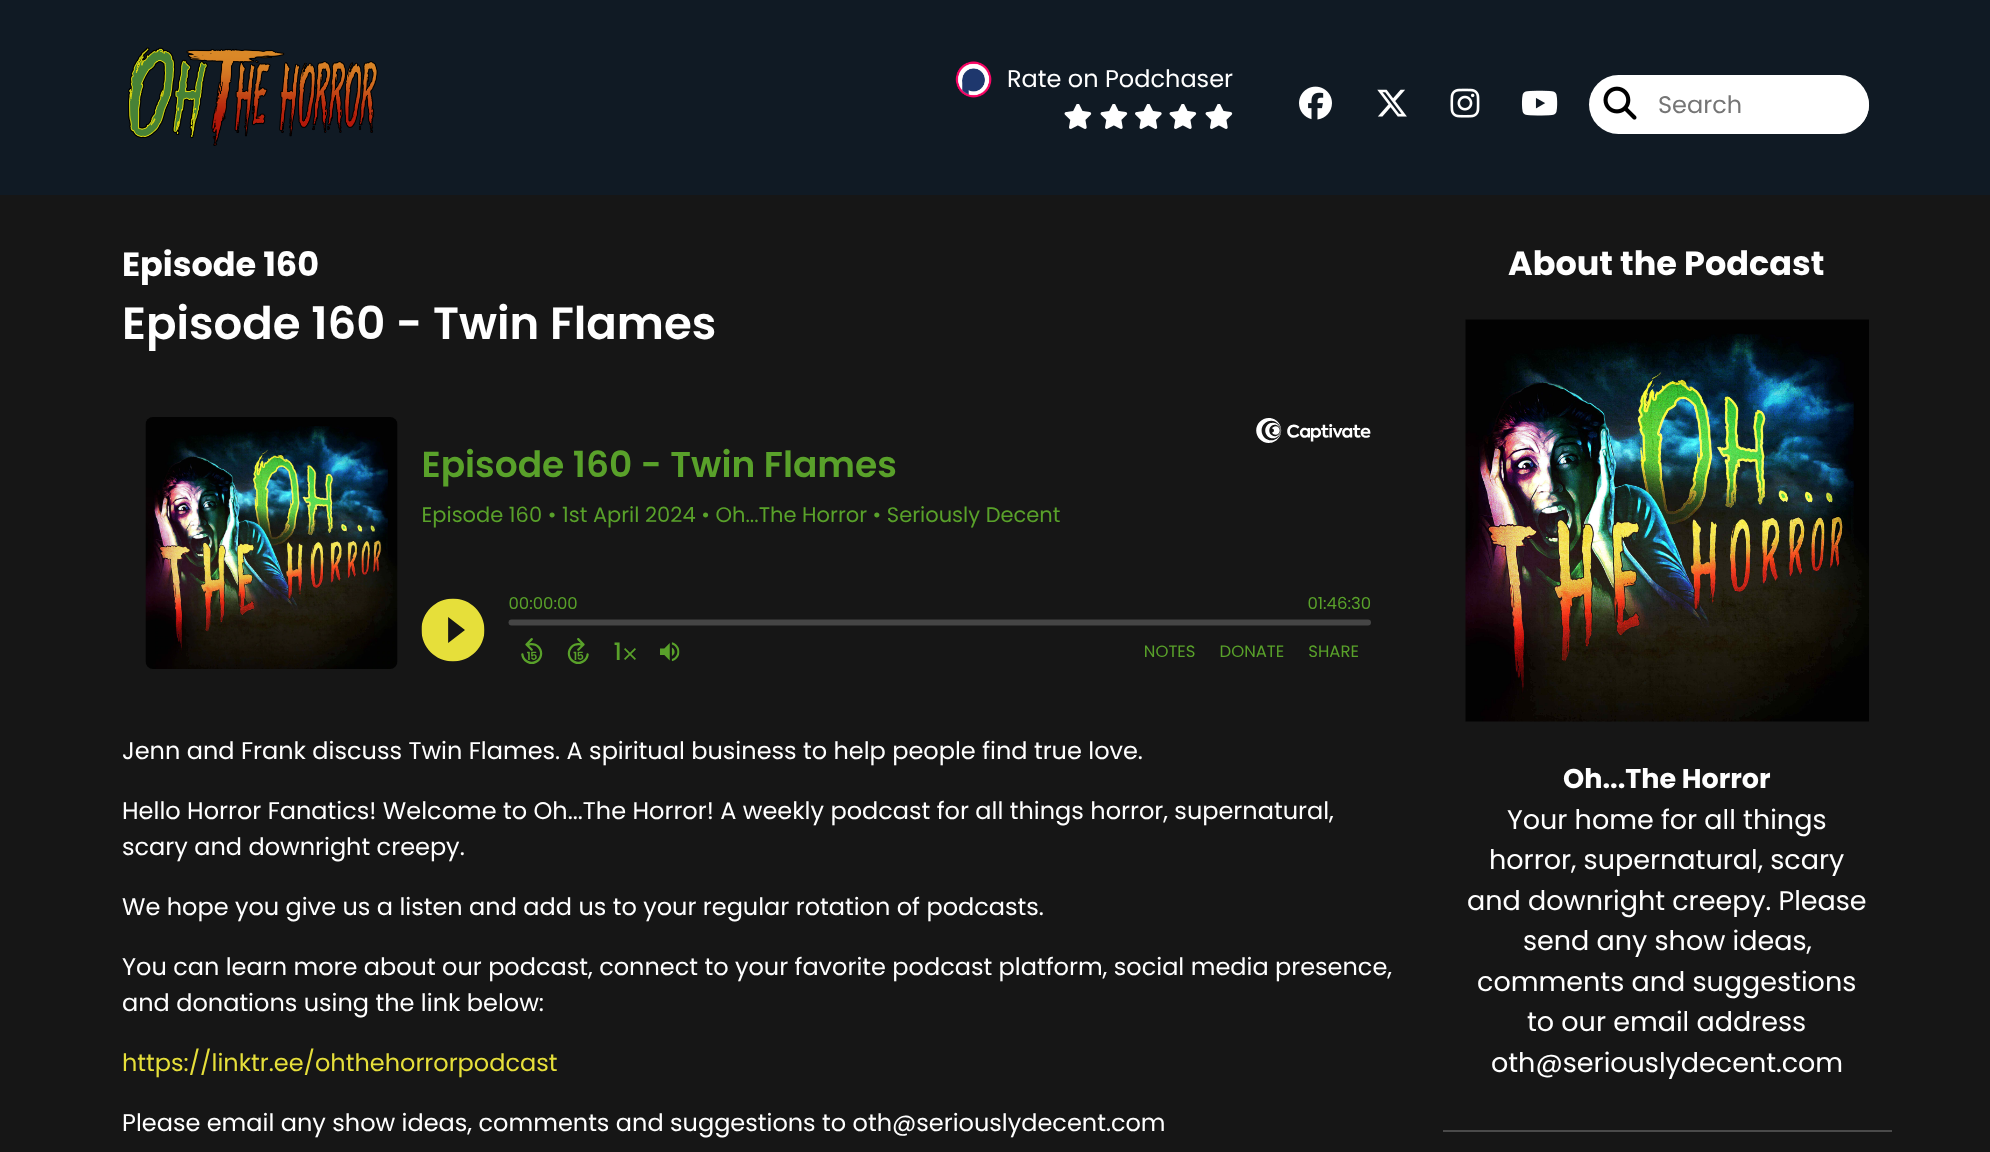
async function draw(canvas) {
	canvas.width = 1990;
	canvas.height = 1152;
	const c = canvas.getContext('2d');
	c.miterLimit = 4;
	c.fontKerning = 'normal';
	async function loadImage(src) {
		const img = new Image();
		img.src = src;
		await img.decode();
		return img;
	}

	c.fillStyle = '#161616';
	c.fillRect(0, 0, 1990, 1152);
	c.fillStyle = '#101a24';
	c.fillRect(0, 0, 1990, 195);
	c.drawImage(await loadImage('img1.png'), 128, 47, 250, 99);
	c.drawImage(await loadImage('img2.png'), 955, 61, 37, 37);
	c.font = '24px Poppins';
	c.fillStyle = '#fff';
	c.fillText('Rate on Podchaser', 1007, 87);
	c.drawImage(await loadImage('img3.png'), 1064, 104, 28, 25);
	c.drawImage(await loadImage('img3.png'), 1100, 104, 28, 25);
	c.drawImage(await loadImage('img4.png'), 1135, 104, 27, 25);
	c.drawImage(await loadImage('img3.png'), 1169, 104, 28, 25);
	c.drawImage(await loadImage('img3.png'), 1205, 104, 28, 25);
	c.drawImage(await loadImage('img5.png'), 1299, 86, 33, 34);
	c.drawImage(await loadImage('img6.png'), 1377, 89, 30, 28);
	c.drawImage(await loadImage('img7.png'), 1450, 88, 30, 30);
	c.drawImage(await loadImage('img8.png'), 1521, 90, 37, 26);
	c.beginPath();
	c.roundRect(1589, 75, 280, 59, 29.5);
	c.fill();
	c.drawImage(await loadImage('img9.png'), 1603, 86, 34, 34);
	c.beginPath();
	c.roundRect(1659, 80, 210, 51, 25.5);
	c.fill();
	c.fillStyle = '#757575';
	c.fillText('Search', 1658, 113);
	c.font = 'bold 33.5px Poppins';
	c.fillStyle = '#fff';
	c.fillText('Episode 160', 122, 276);
	c.font = '600 45px Poppins';
	c.fillText('Episode 160 - Twin Flames', 122, 339);
	c.drawImage(await loadImage('img10.png'), 145, 417, 1226, 252);
	c.font = '24px Poppins';
	for (const [text, x, y] of [
		['Jenn and Frank discuss Twin Flames. A spiritual business to help people find true love.', 122, 759],
		['Hello Horror Fanatics! Welcome to Oh...The Horror! A weekly podcast for all things horror, supernatural,', 122, 819],
		['scary and downright creepy.', 122, 855],
		['We hope you give us a listen and add us to your regular rotation of podcasts.', 122, 915],
		['You can learn more about our podcast, connect to your favorite podcast platform, social media presence,', 122, 975],
		['and donations using the link below:', 122, 1011],
	]) {
		c.fillText(text, x, y);
	}
	c.fillStyle = '#e6df3a';
	c.fillText('https://linktr.ee/ohthehorrorpodcast', 122, 1071);
	c.fillStyle = '#fff';
	c.fillText('Please email any show ideas, comments and suggestions to oth@seriouslydecent.com', 122, 1131);
	c.fillStyle = '#4a4a4a';
	c.fillRect(1443, 1130, 449, 2);
	c.font = 'bold 33.5px Poppins';
	c.fillStyle = '#fff';
	c.fillText('About the Podcast', 1508, 275);
	c.drawImage(await loadImage('img11.png'), 1465, 319, 404, 403);
	c.font = 'bold 27px Poppins';
	c.fillText('Oh...The Horror', 1563, 788);
	c.font = '27px Poppins';
	for (const [text, x, y] of [
		['Your home for all things', 1507, 829],
		['horror, supernatural, scary', 1489, 869],
		['and downright creepy. Please', 1467, 910],
		['send any show ideas,', 1523, 950],
		['comments and suggestions', 1477, 991],
		['to our email address', 1527, 1031],
		['oth@seriouslydecent.com', 1491, 1072],
	]) {
		c.fillText(text, x, y);
	}
}

draw(document.querySelector('canvas'));
